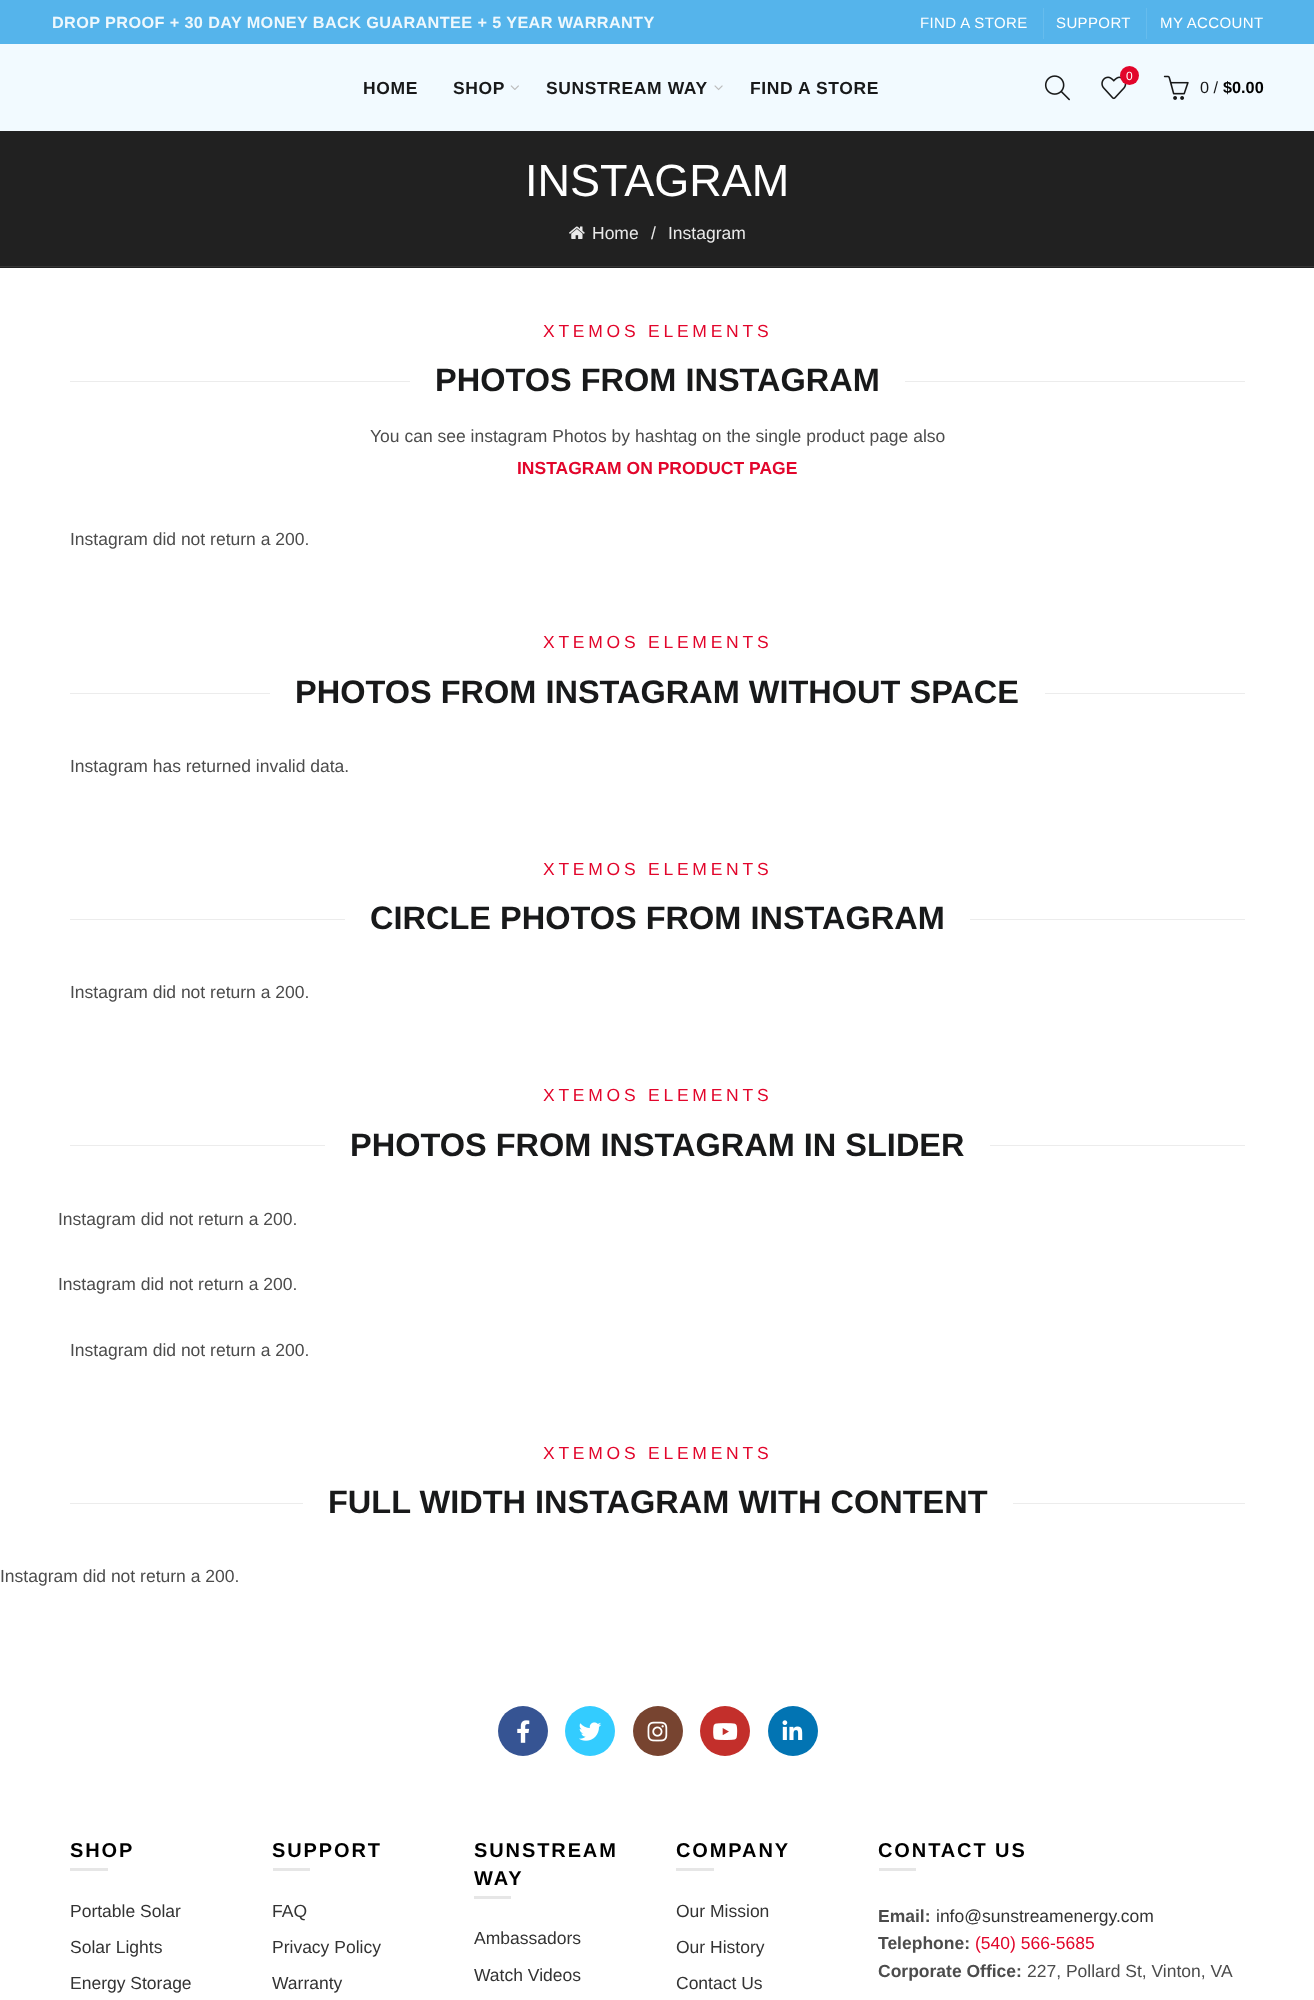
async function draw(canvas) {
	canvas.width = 1314;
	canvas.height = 2000;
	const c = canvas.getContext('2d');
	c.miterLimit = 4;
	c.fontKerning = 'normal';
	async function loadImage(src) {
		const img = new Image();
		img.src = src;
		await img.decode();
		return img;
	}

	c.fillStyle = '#fff';
	c.fillRect(0, 0, 1314, 2000);
	c.fillStyle = '#55b4eb';
	c.fillRect(0, 0, 1314, 44);
	c.letterSpacing = '0.38px';
	c.font = 'bold 16.25px Liberation Sans';
	c.fillStyle = '#eef8fd';
	c.fillText('DROP PROOF + 30 DAY MONEY BACK GUARANTEE + 5 YEAR WARRANTY', 52, 28);
	c.font = '15px Liberation Sans';
	c.fillStyle = '#fff';
	c.fillText('FIND A STORE', 920, 28);
	c.fillStyle = '#66bced';
	c.fillRect(1043, 8, 1, 31);
	c.fillStyle = '#fff';
	c.fillText('SUPPORT', 1056, 28);
	c.fillStyle = '#66bced';
	c.fillRect(1146, 8, 1, 31);
	c.fillStyle = '#fff';
	c.fillText('MY ACCOUNT', 1160, 28);
	c.fillStyle = '#f2faff';
	c.fillRect(0, 44, 1314, 87);
	c.letterSpacing = '0.6px';
	c.font = 'bold 17.5px Liberation Sans';
	c.fillStyle = '#18191a';
	c.fillText('HOME', 363, 94);
	c.fillText('SHOP', 453, 94);
	c.drawImage(await loadImage('img1.png'), 510, 85, 9, 5);
	c.fillText('SUNSTREAM WAY', 546, 94);
	c.drawImage(await loadImage('img2.png'), 714, 85, 9, 6);
	c.fillText('FIND A STORE', 750, 94);
	c.drawImage(await loadImage('img3.png'), 1044, 75, 26, 26);
	c.drawImage(await loadImage('img4.png'), 1101, 76, 26, 24);
	c.fillStyle = '#e2052b';
	c.beginPath();
	c.arc(1129.5, 75.5, 9.5, 0, 2 * Math.PI);
	c.fill();
	c.letterSpacing = '0px';
	c.font = '12px Liberation Sans';
	c.fillStyle = '#fff';
	c.fillText('0', 1126, 80);
	c.drawImage(await loadImage('img5.png'), 1163, 75, 26, 25);
	c.font = '16.25px Liberation Sans';
	c.fillStyle = '#18191a';
	c.fillText('0 /', 1200, 93);
	c.font = 'bold 16.25px Liberation Sans';
	c.fillStyle = '#000';
	c.fillText('$0.00', 1223, 93);
	c.fillStyle = '#212121';
	c.fillRect(0, 131, 1314, 137);
	c.fillStyle = '#353535';
	c.fillRect(0, 266, 1314, 1);
	c.font = '45px Liberation Sans';
	c.fillStyle = '#fff';
	c.fillText('INSTAGRAM', 525, 196);
	c.drawImage(await loadImage('img6.png'), 569, 226, 16, 13);
	c.font = '17.5px Liberation Sans';
	c.fillStyle = '#e9e9e9';
	for (const [text, x, y] of [
		['Home', 592, 239],
		['/', 651, 239],
		['Instagram', 668, 239],
	]) {
		c.fillText(text, x, y);
	}
	c.letterSpacing = '3.75px';
	c.fillStyle = '#e2052b';
	c.fillText('XTEMOS ELEMENTS', 543, 337);
	c.fillStyle = '#ececec';
	c.fillRect(70, 381, 340, 1);
	c.letterSpacing = '0px';
	c.font = 'bold 32.5px Liberation Sans';
	c.fillStyle = '#18191a';
	c.fillText('PHOTOS FROM INSTAGRAM', 435, 391);
	c.fillStyle = '#ececec';
	c.fillRect(905, 381, 340, 1);
	c.font = '17.5px Liberation Sans';
	c.fillStyle = '#4c4c4c';
	c.fillText('You can see instagram Photos by hashtag on the single product page also', 370, 442);
	c.font = 'bold 17.5px Liberation Sans';
	c.fillStyle = '#e2052b';
	c.fillText('INSTAGRAM ON PRODUCT PAGE', 517, 474);
	c.font = '17.5px Liberation Sans';
	c.fillStyle = '#4c4c4c';
	c.fillText('Instagram did not return a 200.', 70, 545);
	c.letterSpacing = '3.75px';
	c.fillStyle = '#e2052b';
	c.fillText('XTEMOS ELEMENTS', 543, 648);
	c.fillStyle = '#ececec';
	c.fillRect(70, 693, 200, 1);
	c.letterSpacing = '0px';
	c.font = 'bold 32.5px Liberation Sans';
	c.fillStyle = '#18191a';
	c.fillText('PHOTOS FROM INSTAGRAM WITHOUT SPACE', 295, 703);
	c.fillStyle = '#ececec';
	c.fillRect(1045, 693, 200, 1);
	c.font = '17.5px Liberation Sans';
	c.fillStyle = '#4c4c4c';
	c.fillText('Instagram has returned invalid data.', 70, 772);
	c.letterSpacing = '3.75px';
	c.fillStyle = '#e2052b';
	c.fillText('XTEMOS ELEMENTS', 543, 875);
	c.fillStyle = '#ececec';
	c.fillRect(70, 919, 275, 1);
	c.letterSpacing = '0px';
	c.font = 'bold 32.5px Liberation Sans';
	c.fillStyle = '#18191a';
	c.fillText('CIRCLE PHOTOS FROM INSTAGRAM', 370, 929);
	c.fillStyle = '#ececec';
	c.fillRect(970, 919, 275, 1);
	c.font = '17.5px Liberation Sans';
	c.fillStyle = '#4c4c4c';
	c.fillText('Instagram did not return a 200.', 70, 998);
	c.letterSpacing = '3.75px';
	c.fillStyle = '#e2052b';
	c.fillText('XTEMOS ELEMENTS', 543, 1101);
	c.fillStyle = '#ececec';
	c.fillRect(70, 1145, 255, 1);
	c.letterSpacing = '0px';
	c.font = 'bold 32.5px Liberation Sans';
	c.fillStyle = '#18191a';
	c.fillText('PHOTOS FROM INSTAGRAM IN SLIDER', 350, 1156);
	c.fillStyle = '#ececec';
	c.fillRect(990, 1145, 255, 1);
	c.font = '17.5px Liberation Sans';
	c.fillStyle = '#4c4c4c';
	for (const [text, x, y] of [
		['Instagram did not return a 200.', 58, 1225],
		['Instagram did not return a 200.', 58, 1290],
		['Instagram did not return a 200.', 70, 1356],
	]) {
		c.fillText(text, x, y);
	}
	c.letterSpacing = '3.75px';
	c.fillStyle = '#e2052b';
	c.fillText('XTEMOS ELEMENTS', 543, 1459);
	c.fillStyle = '#ececec';
	c.fillRect(70, 1503, 233, 1);
	c.letterSpacing = '0px';
	c.font = 'bold 32.5px Liberation Sans';
	c.fillStyle = '#18191a';
	c.fillText('FULL WIDTH INSTAGRAM WITH CONTENT', 328, 1513);
	c.fillStyle = '#ececec';
	c.fillRect(1013, 1503, 232, 1);
	c.font = '17.5px Liberation Sans';
	c.fillStyle = '#4c4c4c';
	c.fillText('Instagram did not return a 200.', 0, 1582);
	c.fillStyle = '#365493';
	c.beginPath();
	c.arc(523, 1731, 25, 0, 2 * Math.PI);
	c.fill();
	c.drawImage(await loadImage('img7.png'), 517, 1720, 13, 23);
	c.fillStyle = '#3cf';
	c.beginPath();
	c.arc(590, 1731, 25, 0, 2 * Math.PI);
	c.fill();
	c.drawImage(await loadImage('img8.png'), 579, 1722, 23, 19);
	c.fillStyle = '#774430';
	c.beginPath();
	c.arc(658, 1731, 25, 0, 2 * Math.PI);
	c.fill();
	c.drawImage(await loadImage('img9.png'), 647, 1721, 21, 21);
	c.fillStyle = '#c32f2b';
	c.beginPath();
	c.arc(725, 1731, 25, 0, 2 * Math.PI);
	c.fill();
	c.drawImage(await loadImage('img10.png'), 713, 1723, 25, 17);
	c.fillStyle = '#0274b3';
	c.beginPath();
	c.arc(793, 1731, 25, 0, 2 * Math.PI);
	c.fill();
	c.drawImage(await loadImage('img11.png'), 782, 1720, 21, 20);
	c.letterSpacing = '1.9px';
	c.font = 'bold 20px Liberation Sans';
	c.fillStyle = '#000';
	c.fillText('SHOP', 70, 1857);
	c.fillStyle = '#e6e6e6';
	c.fillRect(70, 1868, 38, 3);
	c.letterSpacing = '0px';
	c.font = '17.5px Liberation Sans';
	c.fillStyle = '#333';
	for (const [text, x, y] of [
		['Portable Solar', 70, 1917],
		['Solar Lights', 70, 1953],
		['Energy Storage', 70, 1989],
	]) {
		c.fillText(text, x, y);
	}
	c.letterSpacing = '1.9px';
	c.font = 'bold 20px Liberation Sans';
	c.fillStyle = '#000';
	c.fillText('SUPPORT', 272, 1857);
	c.fillStyle = '#e6e6e6';
	c.fillRect(273, 1868, 37, 3);
	c.letterSpacing = '0px';
	c.font = '17.5px Liberation Sans';
	c.fillStyle = '#333';
	for (const [text, x, y] of [
		['FAQ', 272, 1917],
		['Privacy Policy', 272, 1953],
		['Warranty', 272, 1989],
	]) {
		c.fillText(text, x, y);
	}
	c.letterSpacing = '1.9px';
	c.font = 'bold 20px Liberation Sans';
	c.fillStyle = '#000';
	c.fillText('SUNSTREAM', 474, 1857);
	c.fillText('WAY', 474, 1885);
	c.fillStyle = '#e6e6e6';
	c.fillRect(474, 1896, 37, 3);
	c.letterSpacing = '0px';
	c.font = '17.5px Liberation Sans';
	c.fillStyle = '#333';
	c.fillText('Ambassadors', 474, 1944);
	c.fillText('Watch Videos', 474, 1981);
	c.letterSpacing = '1.9px';
	c.font = 'bold 20px Liberation Sans';
	c.fillStyle = '#000';
	c.fillText('COMPANY', 676, 1857);
	c.fillStyle = '#e6e6e6';
	c.fillRect(676, 1868, 38, 3);
	c.letterSpacing = '0px';
	c.font = '17.5px Liberation Sans';
	c.fillStyle = '#333';
	for (const [text, x, y] of [
		['Our Mission', 676, 1917],
		['Our History', 676, 1953],
		['Contact Us', 676, 1989],
	]) {
		c.fillText(text, x, y);
	}
	c.letterSpacing = '1.9px';
	c.font = 'bold 20px Liberation Sans';
	c.fillStyle = '#000';
	c.fillText('CONTACT US', 878, 1857);
	c.fillStyle = '#e6e6e6';
	c.fillRect(879, 1868, 37, 3);
	c.letterSpacing = '0px';
	c.font = 'bold 17.5px Liberation Sans';
	c.fillStyle = '#4c4c4c';
	c.fillText('Email:', 878, 1922);
	c.font = '17.5px Liberation Sans';
	c.fillStyle = '#333';
	c.fillText('info@sunstreamenergy.com', 936, 1922);
	c.font = 'bold 17.5px Liberation Sans';
	c.fillStyle = '#4c4c4c';
	c.fillText('Telephone:', 878, 1949);
	c.font = '17.5px Liberation Sans';
	c.fillStyle = '#e2052b';
	c.fillText('(540) 566-5685', 975, 1949);
	c.font = 'bold 17.5px Liberation Sans';
	c.fillStyle = '#4c4c4c';
	c.fillText('Corporate Office:', 878, 1977);
	c.font = '17.5px Liberation Sans';
	c.fillText('227, Pollard St, Vinton, VA', 1027, 1977);
}

draw(document.querySelector('canvas'));
